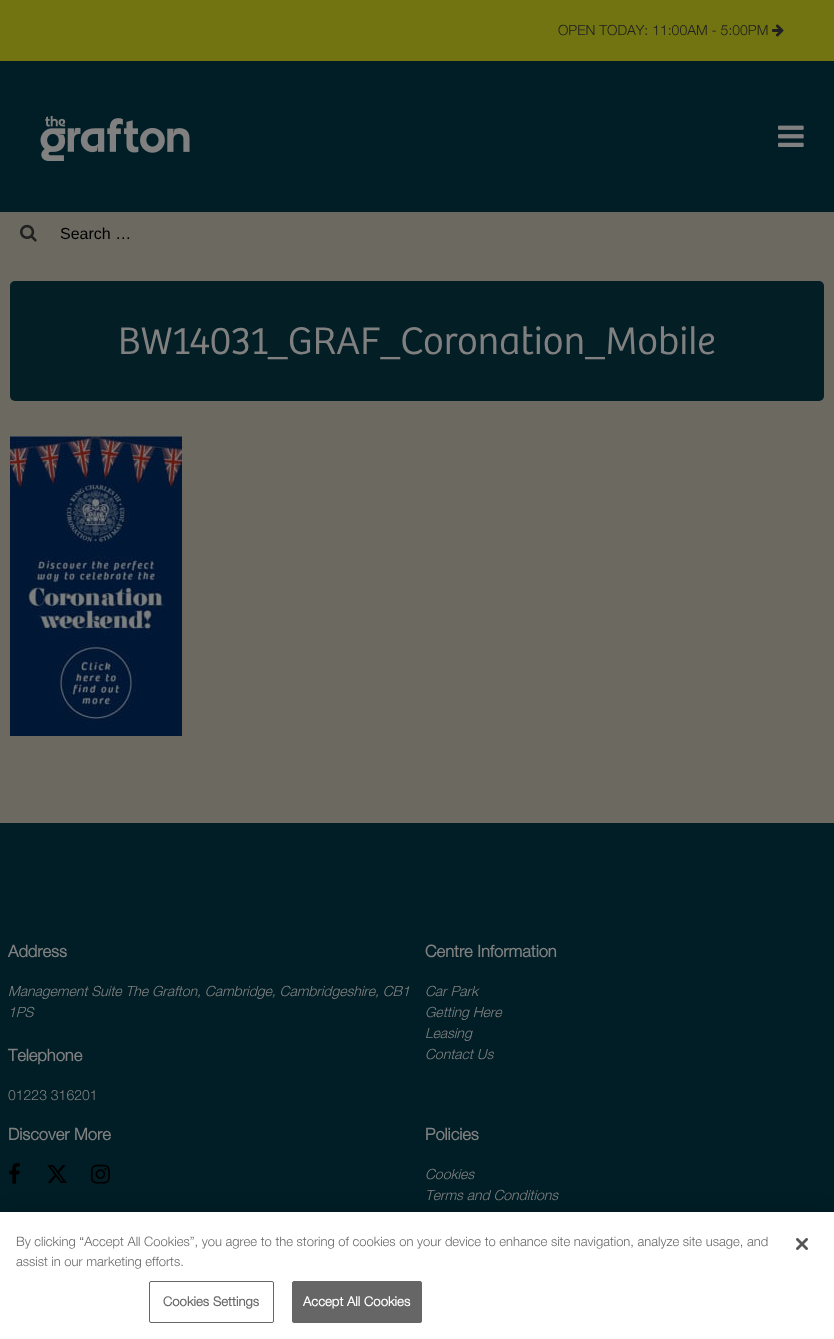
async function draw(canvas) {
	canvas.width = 834;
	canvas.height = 1339;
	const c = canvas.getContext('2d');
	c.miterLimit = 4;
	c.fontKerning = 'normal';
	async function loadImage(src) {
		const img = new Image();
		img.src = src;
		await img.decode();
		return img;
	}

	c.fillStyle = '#6c6960';
	c.fillRect(0, 0, 834, 1339);
	c.fillStyle = '#717410';
	c.fillRect(0, 0, 834, 61);
	c.font = '300 14px "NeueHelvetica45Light"';
	c.fillStyle = '#202020';
	c.fillText('OPEN TODAY: 11:00AM - 5:00PM', 558, 35);
	c.drawImage(await loadImage('img1.png'), 772, 24, 12, 13);
	c.fillStyle = '#011e26';
	c.fillRect(0, 61, 834, 151);
	c.drawImage(await loadImage('img2.png'), 40, 116, 150, 45);
	c.drawImage(await loadImage('img3.png'), 778, 125, 26, 22);
	c.drawImage(await loadImage('img4.png'), 20, 224, 17, 18);
	c.font = '16px Liberation Sans';
	c.fillStyle = '#000';
	c.fillText('Search …', 60, 239);
	c.fillStyle = '#041e25';
	c.beginPath();
	c.roundRect(10, 281, 814, 120, 5);
	c.fill();
	c.font = '300 40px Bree';
	c.fillStyle = '#808080';
	c.fillText('BW14031_GRAF_Coronation_Mobile', 118, 354);
	c.drawImage(await loadImage('img5.png'), 10, 436, 172, 300);
	c.fillStyle = '#011e26';
	c.fillRect(0, 823, 834, 389);
	c.font = 'bold 16.5px "NeueHelvetica45Light"';
	c.fillStyle = '#808080';
	c.fillText('Address', 8, 957);
	c.font = 'italic 300 14px "NeueHelvetica45Light"';
	c.fillText('Management Suite The Grafton, Cambridge, Cambridgeshire, CB1', 8, 996);
	c.fillText('1PS', 8, 1017);
	c.font = 'bold 16.5px "NeueHelvetica45Light"';
	c.fillText('Telephone', 8, 1061);
	c.font = '300 14px "NeueHelvetica45Light"';
	c.fillText('01223 316201', 8, 1100);
	c.font = 'bold 16.5px "NeueHelvetica45Light"';
	c.fillText('Centre Information', 425, 957);
	c.font = 'italic 300 14px "NeueHelvetica45Light"';
	for (const [text, x, y] of [
		['Car Park', 425, 996],
		['Getting Here', 425, 1017],
		['Leasing', 425, 1038],
		['Contact Us', 425, 1059],
	]) {
		c.fillText(text, x, y);
	}
	c.font = 'bold 16.5px "NeueHelvetica45Light"';
	c.fillText('Discover More', 8, 1140);
	c.drawImage(await loadImage('img6.png'), 9, 1163, 11, 21);
	c.drawImage(await loadImage('img7.png'), 47, 1165, 20, 18);
	c.drawImage(await loadImage('img8.png'), 91, 1164, 19, 20);
	c.fillText('Policies', 425, 1140);
	c.font = 'italic 300 14px "NeueHelvetica45Light"';
	c.fillText('Cookies', 425, 1179);
	c.fillText('Terms and Conditions', 425, 1200);
	c.fillStyle = '#00000033';
	c.filter = 'blur(9px)';
	c.beginPath();
	c.rect(0, 1212, 834, 127);
	c.fill();
	c.filter = 'none';
	c.fillStyle = '#fff';
	c.fillRect(0, 1212, 834, 127);
	c.font = '300 13px "NeueHelvetica45Light"';
	c.fillStyle = '#696969';
	c.fillText('By clicking “Accept All Cookies”, you agree to the storing of cookies on your device to enhance site navigation, analyze site usage, and', 16, 1246);
	c.fillText('assist in our marketing efforts.', 16, 1266);
	c.beginPath();
	c.roundRect(149.5, 1281.5, 124, 41, 1.5);
	c.strokeStyle = '#666';
	c.stroke();
	c.letterSpacing = '0.1px';
	c.font = 'bold 13px "NeueHelvetica45Light"';
	c.fillText('Cookies Settings', 163, 1306);
	c.fillStyle = '#666';
	c.beginPath();
	c.roundRect(292.5, 1281.5, 129, 41, 1.5);
	c.fill();
	c.stroke();
	c.fillStyle = '#fff';
	c.fillText('Accept All Cookies', 303, 1306);
	c.drawImage(await loadImage('img9.png'), 796, 1238, 12, 12);
}

draw(document.querySelector('canvas'));
